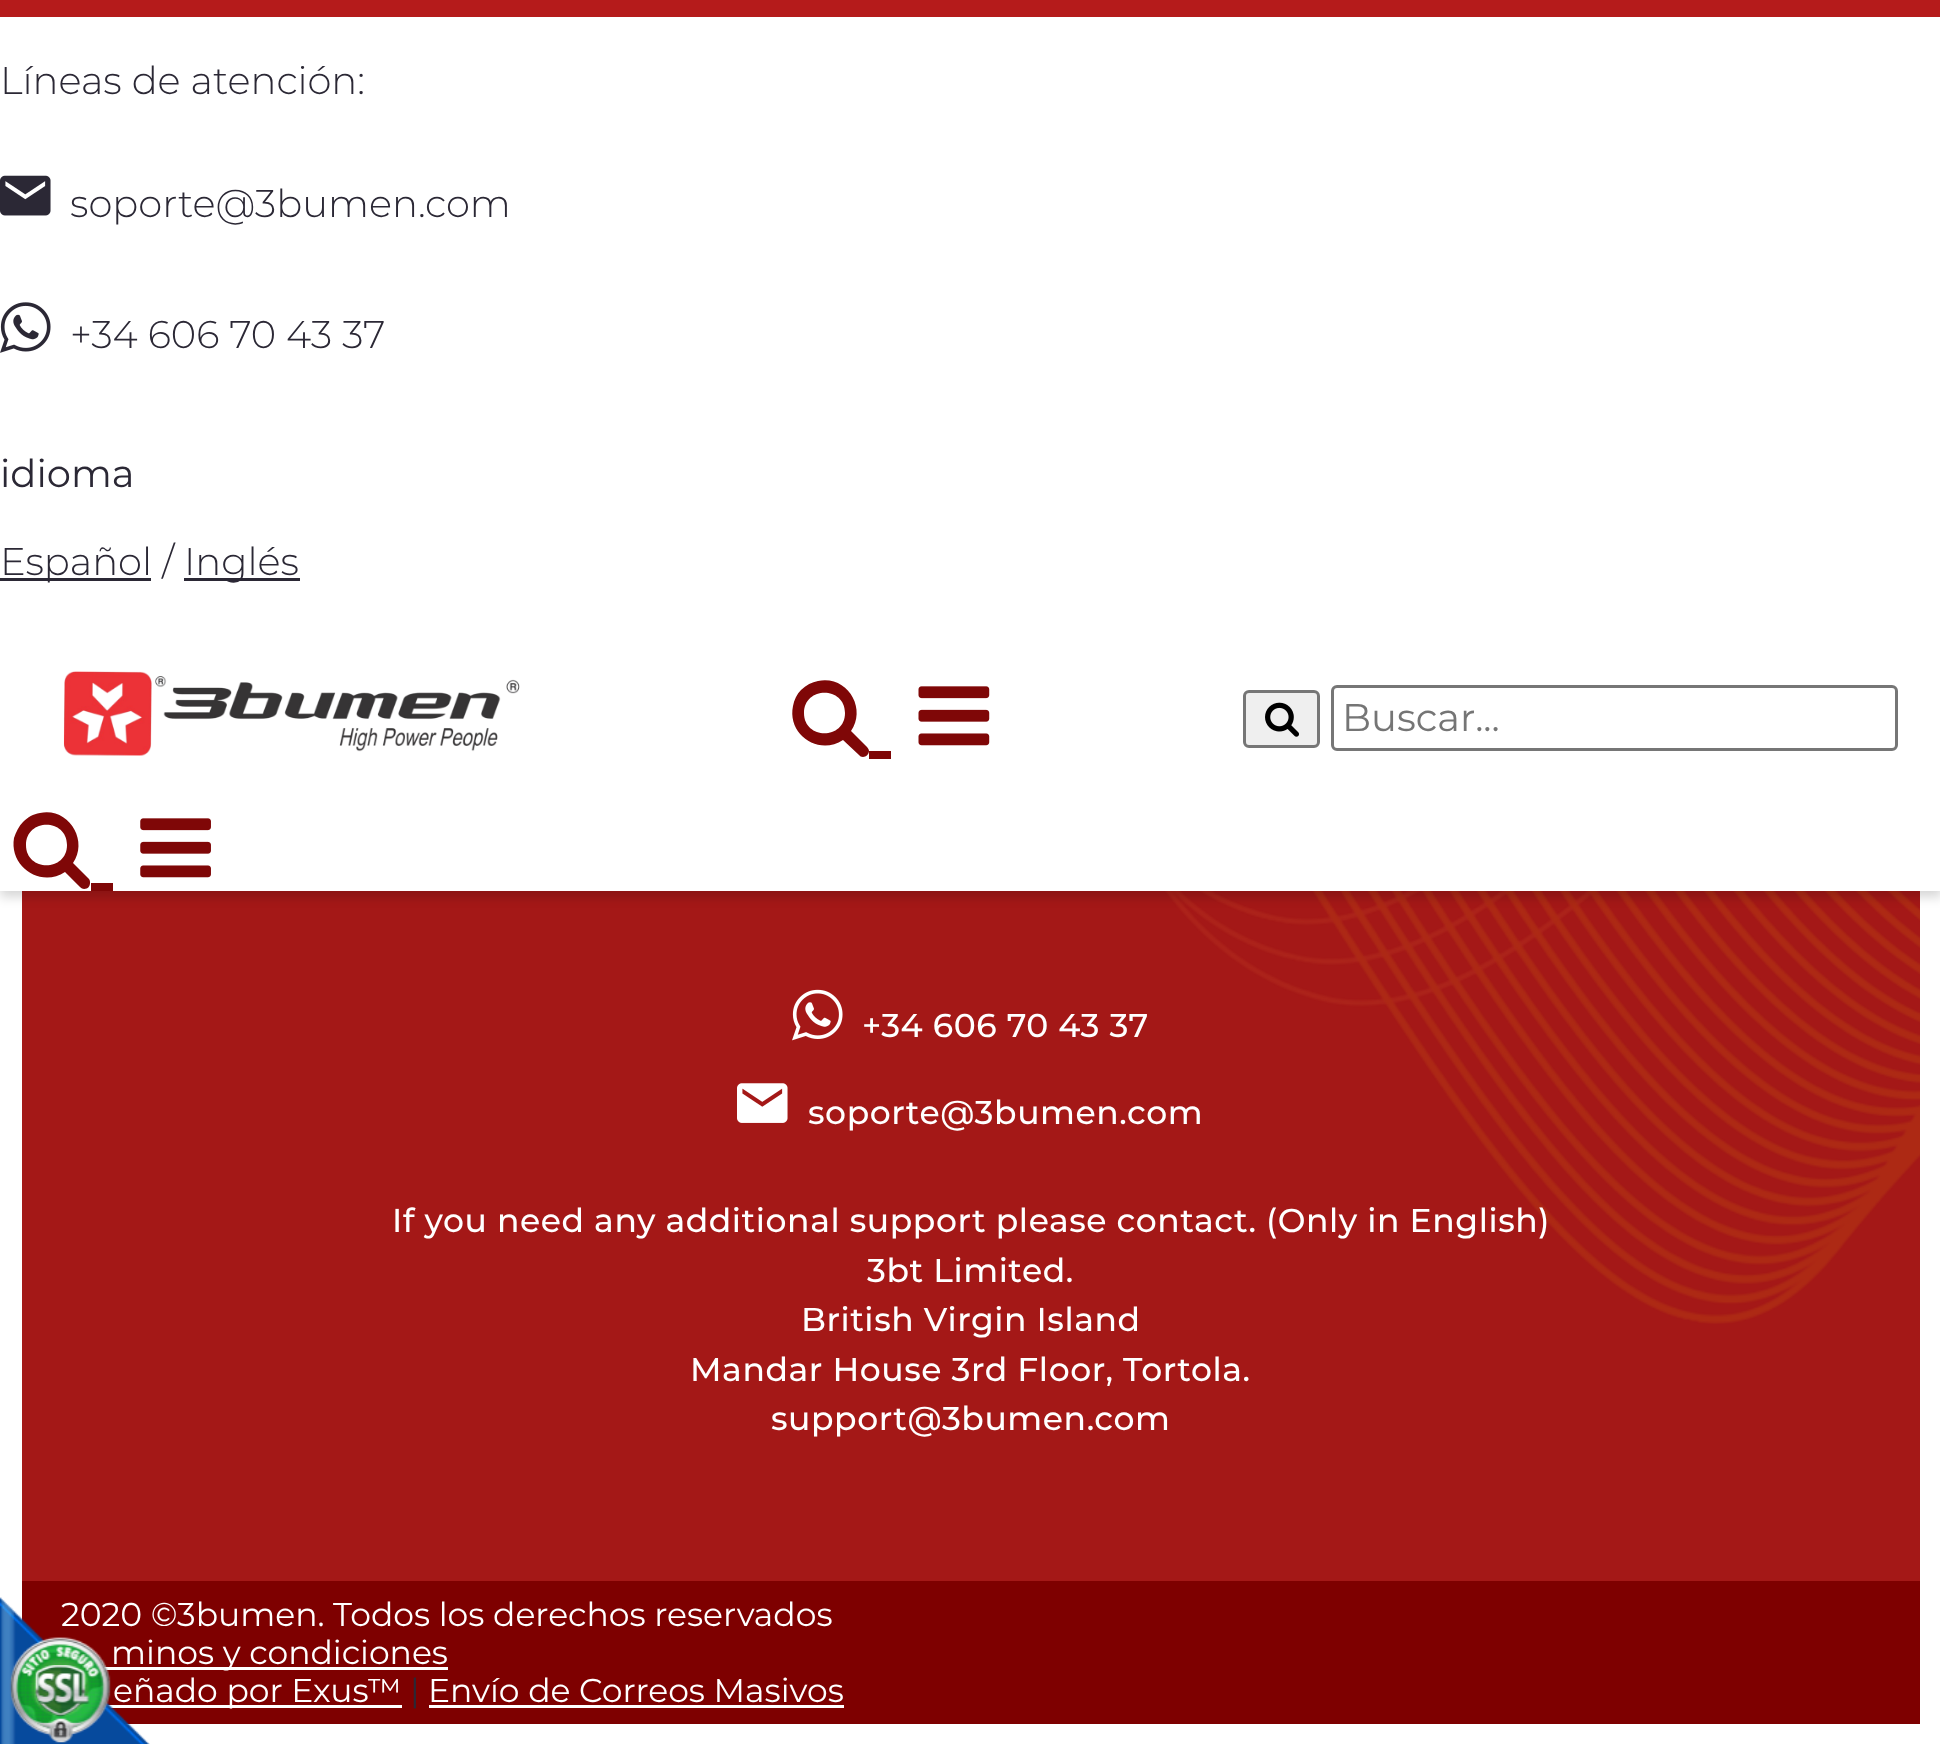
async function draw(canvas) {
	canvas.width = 1940;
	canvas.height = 1744;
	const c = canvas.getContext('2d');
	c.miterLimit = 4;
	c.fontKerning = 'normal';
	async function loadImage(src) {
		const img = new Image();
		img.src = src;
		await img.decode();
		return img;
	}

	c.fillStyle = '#fff';
	c.fillRect(0, 0, 1940, 1744);
	c.fillStyle = '#a41817';
	c.fillRect(22, 891, 1898, 690);
	c.drawImage(await loadImage('img7.png'), 1165, 891, 755, 433);
	c.fillStyle = '#00000029';
	c.filter = 'blur(5.5px)';
	c.beginPath();
	c.rect(0, 6, 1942, 891);
	c.fill();
	c.filter = 'none';
	c.fillStyle = '#fff';
	c.fillRect(0, 17, 1940, 874);
	c.fillStyle = '#b51b1b';
	c.fillRect(0, 0, 1940, 17);
	c.font = '300 38.5px Montserrat';
	c.fillStyle = '#2b2835';
	c.fillText('Líneas de atención:', 0, 94);
	c.drawImage(await loadImage('img1.png'), 0, 175, 51, 41);
	c.fillText('soporte@3bumen.com', 70, 217);
	c.drawImage(await loadImage('img2.png'), 0, 302, 51, 51);
	c.fillText('+34 606 70 43 37', 70, 348);
	c.font = '38.5px Montserrat';
	c.fillText('idioma', 0, 487);
	c.fillRect(0, 578, 151, 3);
	c.font = '300 38.5px Montserrat';
	c.fillText('Español /', 0, 575);
	c.fillRect(184, 578, 116, 3);
	c.fillText('Inglés', 184, 575);
	c.drawImage(await loadImage('img3.png'), 63, 671, 457, 85);
	c.fillStyle = '#7f0707';
	c.beginPath();
	c.moveTo(845, 713);
	c.bezierCurveTo(845, 740, 804, 740, 804, 713);
	c.bezierCurveTo(804, 686, 845, 686, 845, 713);
	c.closePath();
	c.moveTo(869, 751);
	c.bezierCurveTo(869, 750, 868, 748, 867, 747);
	c.lineTo(851, 731);
	c.bezierCurveTo(867, 708, 847, 675, 818, 681);
	c.bezierCurveTo(812, 682, 806, 685, 801, 690);
	c.bezierCurveTo(797, 694, 794, 700, 793, 706);
	c.bezierCurveTo(787, 735, 819, 756, 843, 740);
	c.lineTo(859, 755);
	c.bezierCurveTo(860, 756, 861, 757, 863, 757);
	c.bezierCurveTo(866, 757, 869, 754, 869, 751);
	c.closePath();
	c.fill();
	c.fillRect(869, 751, 22, 8);
	c.drawImage(await loadImage('img4.png'), 918, 686, 72, 60);
	c.fillStyle = '#efefef';
	c.beginPath();
	c.roundRect(1244.5, 691.5, 74, 55, 4.5);
	c.fill();
	c.strokeStyle = '#767676';
	c.lineWidth = 3;
	c.stroke();
	c.drawImage(await loadImage('img5.png'), 1265, 702, 34, 35);
	c.beginPath();
	c.roundRect(1332.5, 686.5, 564, 63, 4.5);
	c.stroke();
	c.font = '38.5px Montserrat';
	c.fillStyle = '#757575';
	c.fillText('Buscar...', 1342, 731);
	c.fillStyle = '#7f0707';
	c.beginPath();
	c.moveTo(67, 845);
	c.bezierCurveTo(67, 872, 26, 872, 26, 845);
	c.bezierCurveTo(26, 818, 67, 818, 67, 845);
	c.closePath();
	c.moveTo(90, 883);
	c.bezierCurveTo(90, 882, 90, 880, 89, 879);
	c.lineTo(73, 863);
	c.bezierCurveTo(89, 840, 68, 807, 40, 813);
	c.bezierCurveTo(33, 814, 28, 817, 23, 822);
	c.bezierCurveTo(19, 826, 16, 832, 14, 838);
	c.bezierCurveTo(9, 867, 41, 888, 65, 872);
	c.lineTo(80, 887);
	c.bezierCurveTo(81, 888, 83, 889, 84, 889);
	c.bezierCurveTo(88, 889, 90, 886, 90, 883);
	c.closePath();
	c.fill();
	c.fillRect(91, 883, 22, 8);
	c.drawImage(await loadImage('img6.png'), 140, 818, 71, 60);
	c.drawImage(await loadImage('img8.png'), 792, 989, 51, 52);
	c.letterSpacing = '0.58px';
	c.font = '500 33px Montserrat';
	c.fillStyle = '#fff';
	c.fillText('+34 606 70 43 37', 862, 1037);
	c.drawImage(await loadImage('img9.png'), 737, 1083, 51, 40);
	for (const [text, x, y] of [
		['soporte@3bumen.com', 808, 1124],
		['If you need any additional support please contact. (Only in English)', 392, 1232],
		['3bt Limited.', 867, 1282],
		['British Virgin Island', 801, 1331],
		['Mandar House 3rd Floor, Tortola.', 690, 1381],
		['support@3bumen.com', 771, 1430],
	]) {
		c.fillText(text, x, y);
	}
	c.fillStyle = '#7e0000';
	c.fillRect(22, 1581, 1898, 143);
	c.letterSpacing = '0px';
	c.font = '33px Montserrat';
	c.fillStyle = '#fff';
	c.fillText('2020 ©3bumen. Todos los derechos reservados', 61, 1626);
	c.fillRect(104, 1667, 344, 3);
	c.fillText('minos y condiciones', 111, 1664);
	c.fillRect(106, 1705, 296, 3);
	c.fillText('eñado por Exus™', 113, 1702);
	c.fillStyle = '#2b2835';
	c.fillText('|', 410, 1702);
	c.fillStyle = '#fff';
	c.fillText('Envío de Correos Masivos', 428, 1702);
	c.fillRect(429, 1705, 415, 3);
	c.drawImage(await loadImage('img10.png'), 0, 1597, 150, 147);
}

draw(document.querySelector('canvas'));
